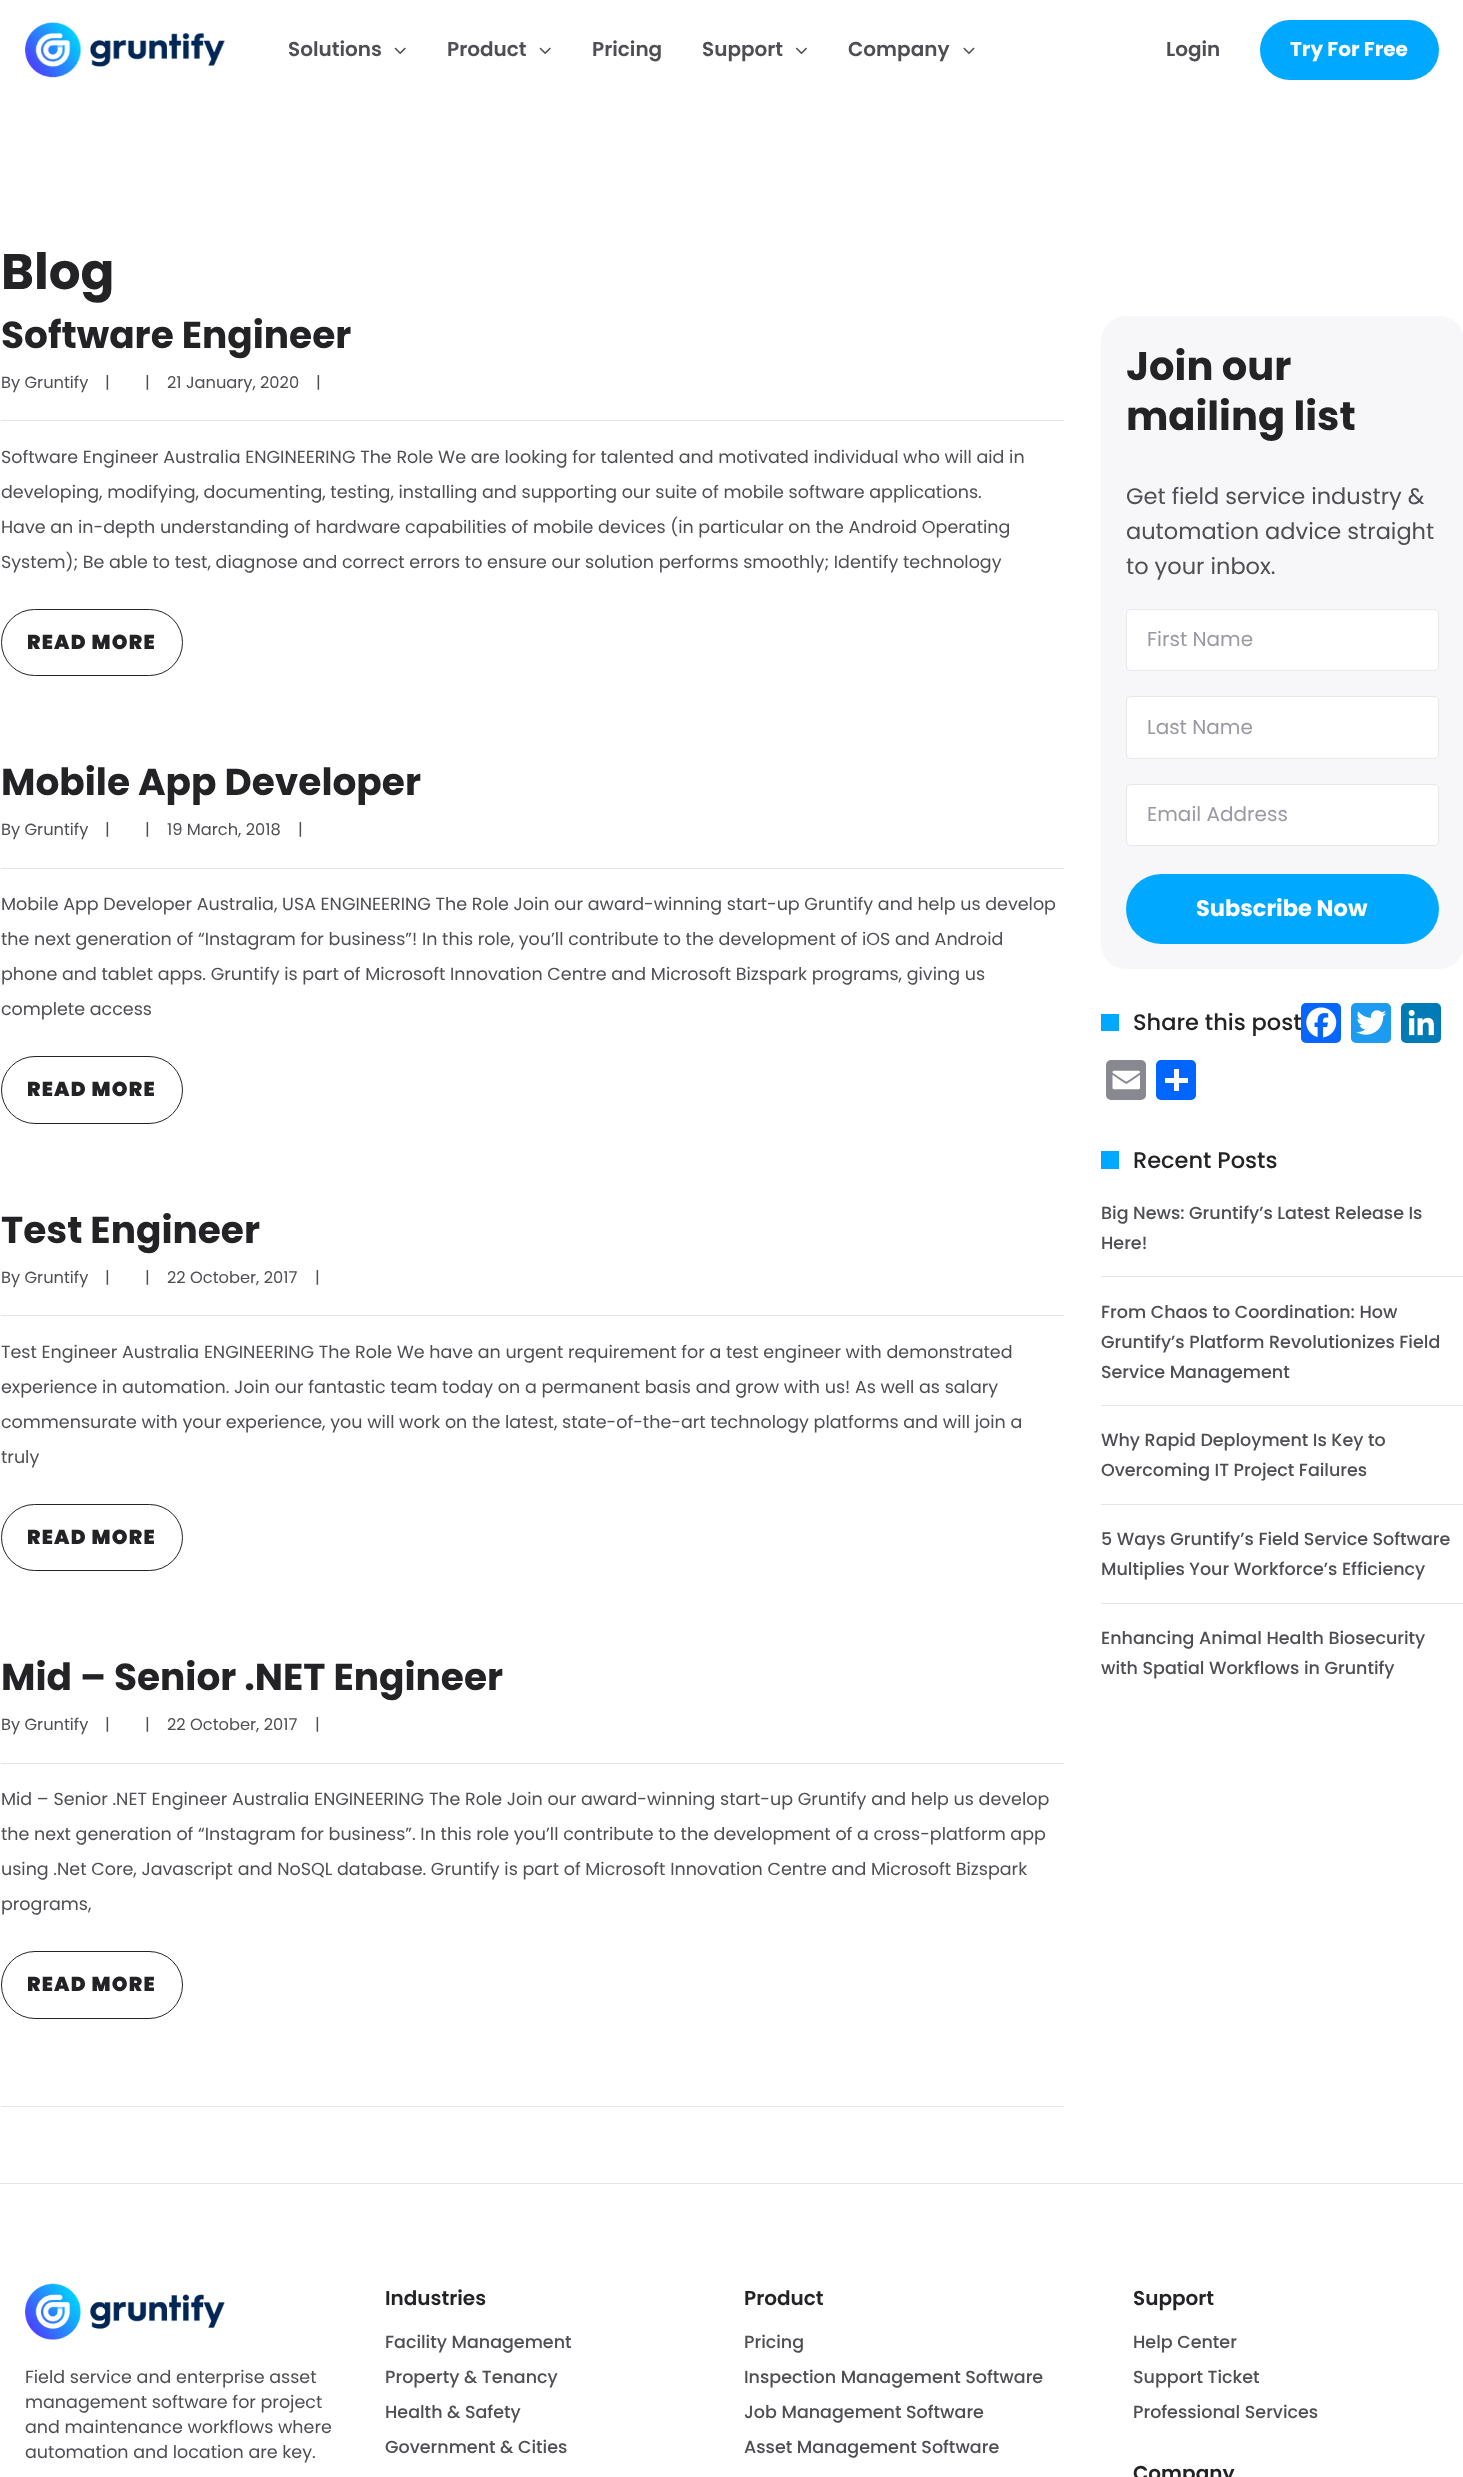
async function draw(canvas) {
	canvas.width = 1463;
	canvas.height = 2477;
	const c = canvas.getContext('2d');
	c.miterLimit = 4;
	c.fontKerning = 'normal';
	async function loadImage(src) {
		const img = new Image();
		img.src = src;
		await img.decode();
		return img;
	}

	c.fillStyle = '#fff';
	c.fillRect(0, 0, 1463, 2477);
	c.drawImage(await loadImage('img1.png'), 25, 22, 200, 56);
	c.font = '600 20px Poppins';
	c.fillStyle = '#4e4e53';
	c.fillText('Solutions', 288, 56);
	c.drawImage(await loadImage('img2.png'), 394, 47, 12, 8);
	c.fillText('Product', 447, 56);
	c.drawImage(await loadImage('img2.png'), 539, 47, 12, 8);
	c.fillText('Pricing', 592, 56);
	c.fillText('Support', 702, 56);
	c.drawImage(await loadImage('img3.png'), 795, 47, 12, 8);
	c.fillText('Company', 848, 56);
	c.drawImage(await loadImage('img4.png'), 963, 47, 12, 8);
	c.fillText('Login', 1166, 56);
	c.fillStyle = '#00a9ff';
	c.beginPath();
	c.roundRect(1260, 20, 179, 60, 30);
	c.fill();
	c.font = 'bold 20px Poppins';
	c.fillStyle = '#fff';
	c.fillText('Try For Free', 1290, 56);
	c.font = 'bold 50px Poppins';
	c.fillStyle = '#232326';
	c.fillText('Blog', 1, 289);
	c.font = 'bold 37.5px Poppins';
	c.fillText('Software Engineer', 1, 348);
	c.fillStyle = '#e6e4ea';
	c.fillRect(1, 420, 1063, 1);
	c.font = '16.25px Poppins';
	c.fillStyle = '#4e4e53';
	for (const [text, x, y] of [
		['By Gruntify', 1, 388],
		['|', 105, 388],
		['|', 145, 388],
		['21 January, 2020', 167, 388],
		['|', 316, 388],
	]) {
		c.fillText(text, x, y);
	}
	c.font = '17.5px Poppins';
	for (const [text, x, y] of [
		['Software Engineer Australia ENGINEERING The Role We are looking for talented and motivated individual who will aid in', 1, 463],
		['developing, modifying, documenting, testing, installing and supporting our suite of mobile software applications.', 1, 498],
		['Have an in-depth understanding of hardware capabilities of mobile devices (in particular on the Android Operating', 1, 533],
		['System); Be able to test, diagnose and correct errors to ensure our solution performs smoothly; Identify technology', 1, 568],
	]) {
		c.fillText(text, x, y);
	}
	c.beginPath();
	c.roundRect(1.5, 609.5, 181, 66, 33);
	c.strokeStyle = '#232326';
	c.stroke();
	c.letterSpacing = '1.25px';
	c.font = '900 20px Poppins';
	c.fillStyle = '#232326';
	c.fillText('READ MORE', 27, 649);
	c.letterSpacing = '0px';
	c.font = 'bold 37.5px Poppins';
	c.fillText('Mobile App Developer', 1, 795);
	c.fillStyle = '#e6e4ea';
	c.fillRect(1, 868, 1063, 1);
	c.font = '16.25px Poppins';
	c.fillStyle = '#4e4e53';
	for (const [text, x, y] of [
		['By Gruntify', 1, 835],
		['|', 105, 835],
		['|', 145, 835],
		['19 March, 2018', 167, 835],
		['|', 298, 835],
	]) {
		c.fillText(text, x, y);
	}
	c.font = '17.5px Poppins';
	for (const [text, x, y] of [
		['Mobile App Developer Australia, USA ENGINEERING The Role Join our award-winning start-up Gruntify and help us develop', 1, 910],
		['the next generation of “Instagram for business”! In this role, you’ll contribute to the development of iOS and Android', 1, 945],
		['phone and tablet apps. Gruntify is part of Microsoft Innovation Centre and Microsoft Bizspark programs, giving us', 1, 980],
		['complete access', 1, 1015],
	]) {
		c.fillText(text, x, y);
	}
	c.beginPath();
	c.roundRect(1.5, 1056.5, 181, 67, 33.5);
	c.stroke();
	c.letterSpacing = '1.25px';
	c.font = '900 20px Poppins';
	c.fillStyle = '#232326';
	c.fillText('READ MORE', 27, 1096);
	c.letterSpacing = '0px';
	c.font = 'bold 37.5px Poppins';
	c.fillText('Test Engineer', 1, 1243);
	c.fillStyle = '#e6e4ea';
	c.fillRect(1, 1315, 1063, 1);
	c.font = '16.25px Poppins';
	c.fillStyle = '#4e4e53';
	for (const [text, x, y] of [
		['By Gruntify', 1, 1283],
		['|', 105, 1283],
		['|', 145, 1283],
		['22 October, 2017', 167, 1283],
		['|', 315, 1283],
	]) {
		c.fillText(text, x, y);
	}
	c.font = '17.5px Poppins';
	for (const [text, x, y] of [
		['Test Engineer Australia ENGINEERING The Role We have an urgent requirement for a test engineer with demonstrated', 1, 1358],
		['experience in automation. Join our fantastic team today on a permanent basis and grow with us! As well as salary', 1, 1393],
		['commensurate with your experience, you will work on the latest, state-of-the-art technology platforms and will join a', 1, 1428],
		['truly', 1, 1463],
	]) {
		c.fillText(text, x, y);
	}
	c.beginPath();
	c.roundRect(1.5, 1504.5, 181, 66, 33);
	c.stroke();
	c.letterSpacing = '1.25px';
	c.font = '900 20px Poppins';
	c.fillStyle = '#232326';
	c.fillText('READ MORE', 27, 1544);
	c.letterSpacing = '0px';
	c.font = 'bold 37.5px Poppins';
	c.fillText('Mid – Senior .NET Engineer', 1, 1690);
	c.fillStyle = '#e6e4ea';
	c.fillRect(1, 1763, 1063, 1);
	c.font = '16.25px Poppins';
	c.fillStyle = '#4e4e53';
	for (const [text, x, y] of [
		['By Gruntify', 1, 1730],
		['|', 105, 1730],
		['|', 145, 1730],
		['22 October, 2017', 167, 1730],
		['|', 315, 1730],
	]) {
		c.fillText(text, x, y);
	}
	c.font = '17.5px Poppins';
	for (const [text, x, y] of [
		['Mid – Senior .NET Engineer Australia ENGINEERING The Role Join our award-winning start-up Gruntify and help us develop', 1, 1805],
		['the next generation of “Instagram for business”. In this role you’ll contribute to the development of a cross-platform app', 1, 1840],
		['using .Net Core, Javascript and NoSQL database. Gruntify is part of Microsoft Innovation Centre and Microsoft Bizspark', 1, 1875],
		['programs,', 1, 1910],
	]) {
		c.fillText(text, x, y);
	}
	c.beginPath();
	c.roundRect(1.5, 1951.5, 181, 67, 33.5);
	c.stroke();
	c.letterSpacing = '1.25px';
	c.font = '900 20px Poppins';
	c.fillStyle = '#232326';
	c.fillText('READ MORE', 27, 1991);
	c.fillStyle = '#e6e4ea';
	c.fillRect(1, 2106, 1063, 1);
	c.fillStyle = '#f7f7fa';
	c.beginPath();
	c.roundRect(1101, 316, 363, 653, 25);
	c.fill();
	c.letterSpacing = '0px';
	c.font = 'bold 40px Poppins';
	c.fillStyle = '#232326';
	c.fillText('Join our', 1126, 380);
	c.fillText('mailing list', 1126, 430);
	c.font = '22.5px Poppins';
	c.fillStyle = '#4e4e53';
	for (const [text, x, y] of [
		['Get field service industry &', 1126, 504],
		['automation advice straight', 1126, 539],
		['to your inbox.', 1126, 574],
	]) {
		c.fillText(text, x, y);
	}
	c.fillStyle = '#fff';
	c.beginPath();
	c.roundRect(1126.5, 609.5, 312, 61, 4.5);
	c.fill();
	c.strokeStyle = '#e8e8e8';
	c.stroke();
	c.font = '20px Poppins';
	c.fillStyle = '#9a99a2';
	c.fillText('First Name', 1147, 646);
	c.fillStyle = '#fff';
	c.beginPath();
	c.roundRect(1126.5, 696.5, 312, 62, 4.5);
	c.fill();
	c.stroke();
	c.fillStyle = '#9a99a2';
	c.fillText('Last Name', 1147, 734);
	c.fillStyle = '#fff';
	c.beginPath();
	c.roundRect(1126.5, 784.5, 312, 61, 4.5);
	c.fill();
	c.stroke();
	c.fillStyle = '#9a99a2';
	c.fillText('Email Address', 1147, 821);
	c.fillStyle = '#00a9ff';
	c.beginPath();
	c.roundRect(1126, 874, 313, 70, 35);
	c.fill();
	c.font = 'bold 22.5px Poppins';
	c.fillStyle = '#fff';
	c.fillText('Subscribe Now', 1196, 916);
	c.fillStyle = '#0866ff';
	c.beginPath();
	c.roundRect(1301, 1003, 40, 40, 5);
	c.fill();
	c.drawImage(await loadImage('img5.png'), 1306, 1007, 31, 31);
	c.fillStyle = '#1d9bf0';
	c.beginPath();
	c.roundRect(1351, 1003, 40, 40, 5);
	c.fill();
	c.drawImage(await loadImage('img6.png'), 1356, 1010, 31, 25);
	c.fillStyle = '#007bb5';
	c.beginPath();
	c.roundRect(1401, 1003, 40, 40, 5);
	c.fill();
	c.drawImage(await loadImage('img7.png'), 1408, 1009, 26, 27);
	c.fillStyle = '#888990';
	c.beginPath();
	c.roundRect(1106, 1060, 40, 40, 5);
	c.fill();
	c.drawImage(await loadImage('img8.png'), 1112, 1070, 28, 20);
	c.fillStyle = '#0166ff';
	c.beginPath();
	c.roundRect(1156, 1060, 40, 40, 5);
	c.fill();
	for (const [x, y, w, h, color] of [
		[1174, 1069, 5, 22, '#fff'],
		[1165, 1078, 23, 5, '#fff'],
		[1101, 1014, 18, 17, '#00a9ff'],
	]) {
		c.fillStyle = color;
		c.fillRect(x, y, w, h);
	}
	c.font = '500 22.5px Poppins';
	c.fillStyle = '#232326';
	c.fillText('Share this post', 1133, 1030);
	c.fillStyle = '#00a9ff';
	c.fillRect(1101, 1151, 18, 18);
	c.fillStyle = '#232326';
	c.fillText('Recent Posts', 1133, 1168);
	c.fillStyle = '#e6e4ea';
	c.fillRect(1101, 1276, 362, 1);
	c.font = '500 17.5px Poppins';
	c.fillStyle = '#4e4e53';
	c.fillText('Big News: Gruntify’s Latest Release Is', 1101, 1219);
	c.fillText('Here!', 1101, 1249);
	c.fillStyle = '#e6e4ea';
	c.fillRect(1101, 1405, 362, 1);
	c.fillStyle = '#4e4e53';
	for (const [text, x, y] of [
		['From Chaos to Coordination: How', 1101, 1318],
		['Gruntify’s Platform Revolutionizes Field', 1101, 1348],
		['Service Management', 1101, 1378],
	]) {
		c.fillText(text, x, y);
	}
	c.fillStyle = '#e6e4ea';
	c.fillRect(1101, 1504, 362, 1);
	c.fillStyle = '#4e4e53';
	c.fillText('Why Rapid Deployment Is Key to', 1101, 1446);
	c.fillText('Overcoming IT Project Failures', 1101, 1476);
	c.fillStyle = '#e6e4ea';
	c.fillRect(1101, 1603, 362, 1);
	c.fillStyle = '#4e4e53';
	for (const [text, x, y] of [
		['5 Ways Gruntify’s Field Service Software', 1101, 1545],
		['Multiplies Your Workforce’s Efficiency', 1101, 1575],
		['Enhancing Animal Health Biosecurity', 1101, 1644],
		['with Spatial Workflows in Gruntify', 1101, 1674],
	]) {
		c.fillText(text, x, y);
	}
	c.fillStyle = '#e6e4ea';
	c.fillRect(0, 2183, 1463, 1);
	c.drawImage(await loadImage('img9.png'), 25, 2283, 200, 57);
	c.font = '17.5px Poppins';
	c.fillStyle = '#4e4e53';
	for (const [text, x, y] of [
		['Field service and enterprise asset', 25, 2383],
		['management software for project', 25, 2408],
		['and maintenance workflows where', 25, 2433],
		['automation and location are key.', 25, 2458],
	]) {
		c.fillText(text, x, y);
	}
	c.font = '600 20px Poppins';
	c.fillStyle = '#232326';
	c.fillText('Industries', 385, 2305);
	c.font = '500 17.5px Poppins';
	c.fillStyle = '#4e4e53';
	for (const [text, x, y] of [
		['Facility Management', 385, 2348],
		['Property & Tenancy', 385, 2383],
		['Health & Safety', 385, 2418],
		['Government & Cities', 385, 2453],
	]) {
		c.fillText(text, x, y);
	}
	c.font = '600 20px Poppins';
	c.fillStyle = '#232326';
	c.fillText('Product', 744, 2305);
	c.font = '500 17.5px Poppins';
	c.fillStyle = '#4e4e53';
	for (const [text, x, y] of [
		['Pricing', 744, 2348],
		['Inspection Management Software', 744, 2383],
		['Job Management Software', 744, 2418],
		['Asset Management Software', 744, 2453],
	]) {
		c.fillText(text, x, y);
	}
	c.font = '600 20px Poppins';
	c.fillStyle = '#232326';
	c.fillText('Support', 1133, 2305);
	c.font = '500 17.5px Poppins';
	c.fillStyle = '#4e4e53';
	for (const [text, x, y] of [
		['Help Center', 1133, 2348],
		['Support Ticket', 1133, 2383],
		['Professional Services', 1133, 2418],
	]) {
		c.fillText(text, x, y);
	}
	c.font = '600 20px Poppins';
	c.fillStyle = '#232326';
	c.fillText('Company', 1133, 2480);
}

draw(document.querySelector('canvas'));
